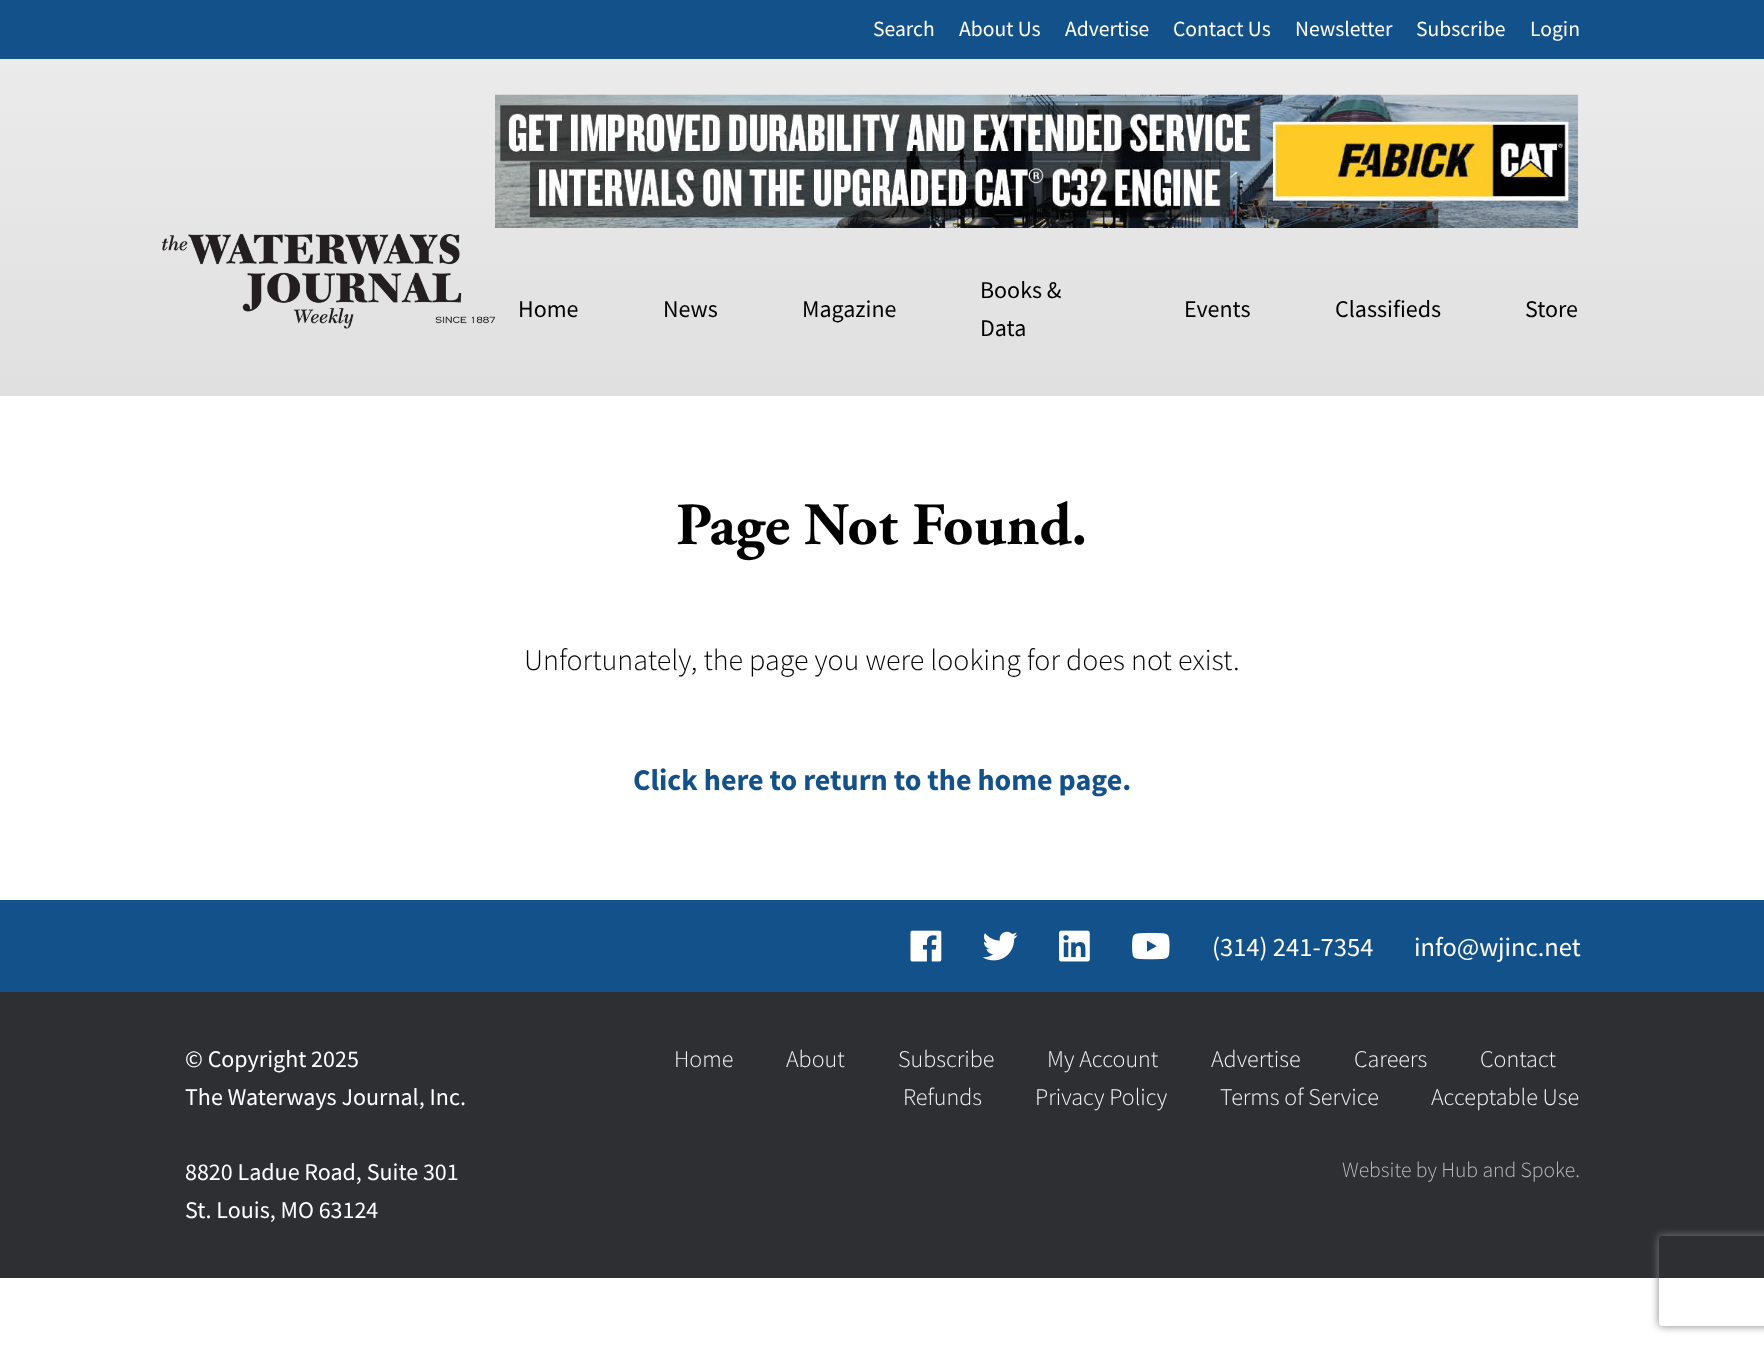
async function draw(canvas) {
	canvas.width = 1764;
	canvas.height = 1347;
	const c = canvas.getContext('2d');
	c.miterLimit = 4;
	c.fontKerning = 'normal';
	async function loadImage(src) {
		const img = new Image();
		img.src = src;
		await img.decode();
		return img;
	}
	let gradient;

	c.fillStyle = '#fff';
	c.fillRect(0, 0, 1764, 1347);
	c.fillStyle = '#13518b';
	c.fillRect(0, 0, 1764, 59);
	c.font = '21.6px Source Sans Pro';
	c.fillStyle = '#fff';
	for (const [text, x, y] of [
		['Search', 873, 36],
		['About Us', 959, 36],
		['Advertise', 1065, 36],
		['Contact Us', 1173, 36],
		['Newsletter', 1295, 36],
		['Subscribe', 1416, 36],
		['Login', 1530, 36],
	]) {
		c.fillText(text, x, y);
	}
	gradient = c.createLinearGradient(882, 58, 882, 396);
	gradient.addColorStop(0, '#ebebeb');
	gradient.addColorStop(1, '#e0e0e0');
	c.fillStyle = gradient;
	c.fillRect(0, 59, 1764, 337);
	c.drawImage(await loadImage('img1.png'), 162, 234, 333, 95);
	c.drawImage(await loadImage('img2.png'), 495, 94, 1083, 134);
	c.font = '24px Source Sans Pro';
	c.fillStyle = '#000';
	for (const [text, x, y] of [
		['Home', 518, 317],
		['News', 663, 317],
		['Magazine', 802, 317],
		['Books &', 980, 298],
		['Data', 980, 336],
		['Events', 1184, 317],
		['Classifieds', 1335, 317],
		['Store', 1525, 317],
	]) {
		c.fillText(text, x, y);
	}
	c.font = 'bold 60px Adobe Garamond';
	c.fillText('Page Not Found.', 676, 544);
	c.font = '300 30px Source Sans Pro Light';
	c.fillText('Unfortunately, the page you were looking for does not exist.', 524, 670);
	c.font = 'bold 30px Source Sans Pro';
	c.fillStyle = '#13518b';
	c.fillText('Click here to return to the home page.', 633, 790);
	c.fillRect(0, 900, 1764, 92);
	c.drawImage(await loadImage('img3.png'), 910, 930, 32, 32);
	c.drawImage(await loadImage('img4.png'), 982, 931, 36, 30);
	c.drawImage(await loadImage('img5.png'), 1059, 930, 31, 32);
	c.drawImage(await loadImage('img6.png'), 1132, 932, 38, 28);
	c.font = '26.5px Source Sans Pro';
	c.fillStyle = '#fff';
	c.fillText('(314) 241-7354', 1212, 956);
	c.fillText('info@wjinc.net', 1414, 956);
	c.fillStyle = '#2d2f33';
	c.fillRect(0, 992, 1764, 286);
	c.font = '24px Source Sans Pro';
	c.fillStyle = '#fff';
	for (const [text, x, y] of [
		['© Copyright 2025', 185, 1067],
		['The Waterways Journal, Inc.', 185, 1105],
		['8820 Ladue Road, Suite 301', 185, 1180],
		['St. Louis, MO 63124', 185, 1218],
	]) {
		c.fillText(text, x, y);
	}
	c.font = '300 24px Source Sans Pro Light';
	c.fillStyle = '#f6f6f6';
	for (const [text, x, y] of [
		['Home', 674, 1067],
		['About', 786, 1067],
		['Subscribe', 898, 1067],
		['My Account', 1047, 1067],
		['Advertise', 1211, 1067],
		['Careers', 1354, 1067],
		['Contact', 1480, 1067],
		['Refunds', 903, 1105],
		['Privacy Policy', 1035, 1105],
		['Terms of Service', 1220, 1105],
		['Acceptable Use', 1431, 1105],
	]) {
		c.fillText(text, x, y);
	}
	c.font = '300 21.6px Source Sans Pro Light';
	c.fillStyle = '#bdbdbd';
	c.fillText('Website by Hub and Spoke.', 1342, 1177);
	c.save();
	c.beginPath();
	c.moveTo(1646, 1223);
	c.lineTo(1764, 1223);
	c.lineTo(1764, 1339);
	c.lineTo(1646, 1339);
	c.closePath();
	c.moveTo(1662, 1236);
	c.lineTo(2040, 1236);
	c.bezierCurveTo(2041.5, 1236, 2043, 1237.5, 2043, 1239);
	c.lineTo(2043, 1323);
	c.bezierCurveTo(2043, 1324.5, 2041.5, 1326, 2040, 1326);
	c.lineTo(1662, 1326);
	c.bezierCurveTo(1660.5, 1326, 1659, 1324.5, 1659, 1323);
	c.lineTo(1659, 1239);
	c.bezierCurveTo(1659, 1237.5, 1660.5, 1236, 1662, 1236);
	c.closePath();
	c.clip('evenodd');
	c.fillStyle = '#808080';
	c.filter = 'blur(4px)';
	c.beginPath();
	c.roundRect(1659, 1236, 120, 90, 3);
	c.fill();
	c.filter = 'none';
	c.restore();
}

draw(document.querySelector('canvas'));
